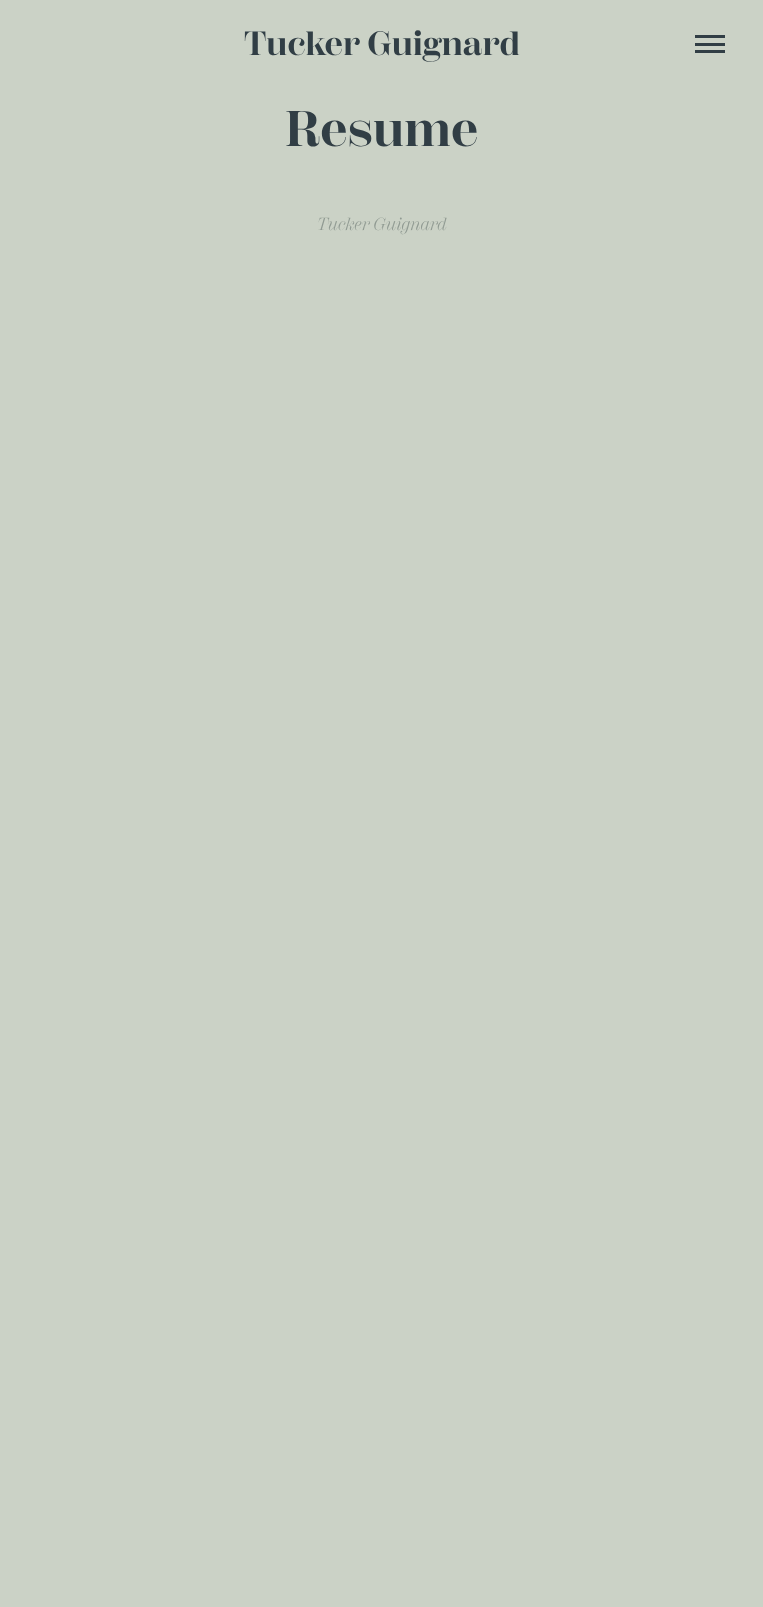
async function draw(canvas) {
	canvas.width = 763;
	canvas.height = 1607;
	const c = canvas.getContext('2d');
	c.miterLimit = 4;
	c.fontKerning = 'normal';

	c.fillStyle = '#cbd2c6';
	c.fillRect(0, 0, 763, 1607);
	c.font = 'bold 33.75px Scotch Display';
	c.fillStyle = '#313e45';
	c.fillText('Tucker Guignard', 244, 55);
	for (const [x, y, w, h, color] of [
		[695, 35, 30, 3, '#313e45'],
		[695, 43, 30, 3, '#313e45'],
		[695, 50, 30, 3, '#313e45'],
	]) {
		c.fillStyle = color;
		c.fillRect(x, y, w, h);
	}
	c.font = 'bold 50px Scotch Display';
	c.fillText('Resume', 285, 146);
	c.font = 'italic 17.5px Scotch Display';
	c.fillStyle = '#909a92';
	c.fillText('Tucker Guignard', 317, 230);
}

draw(document.querySelector('canvas'));
